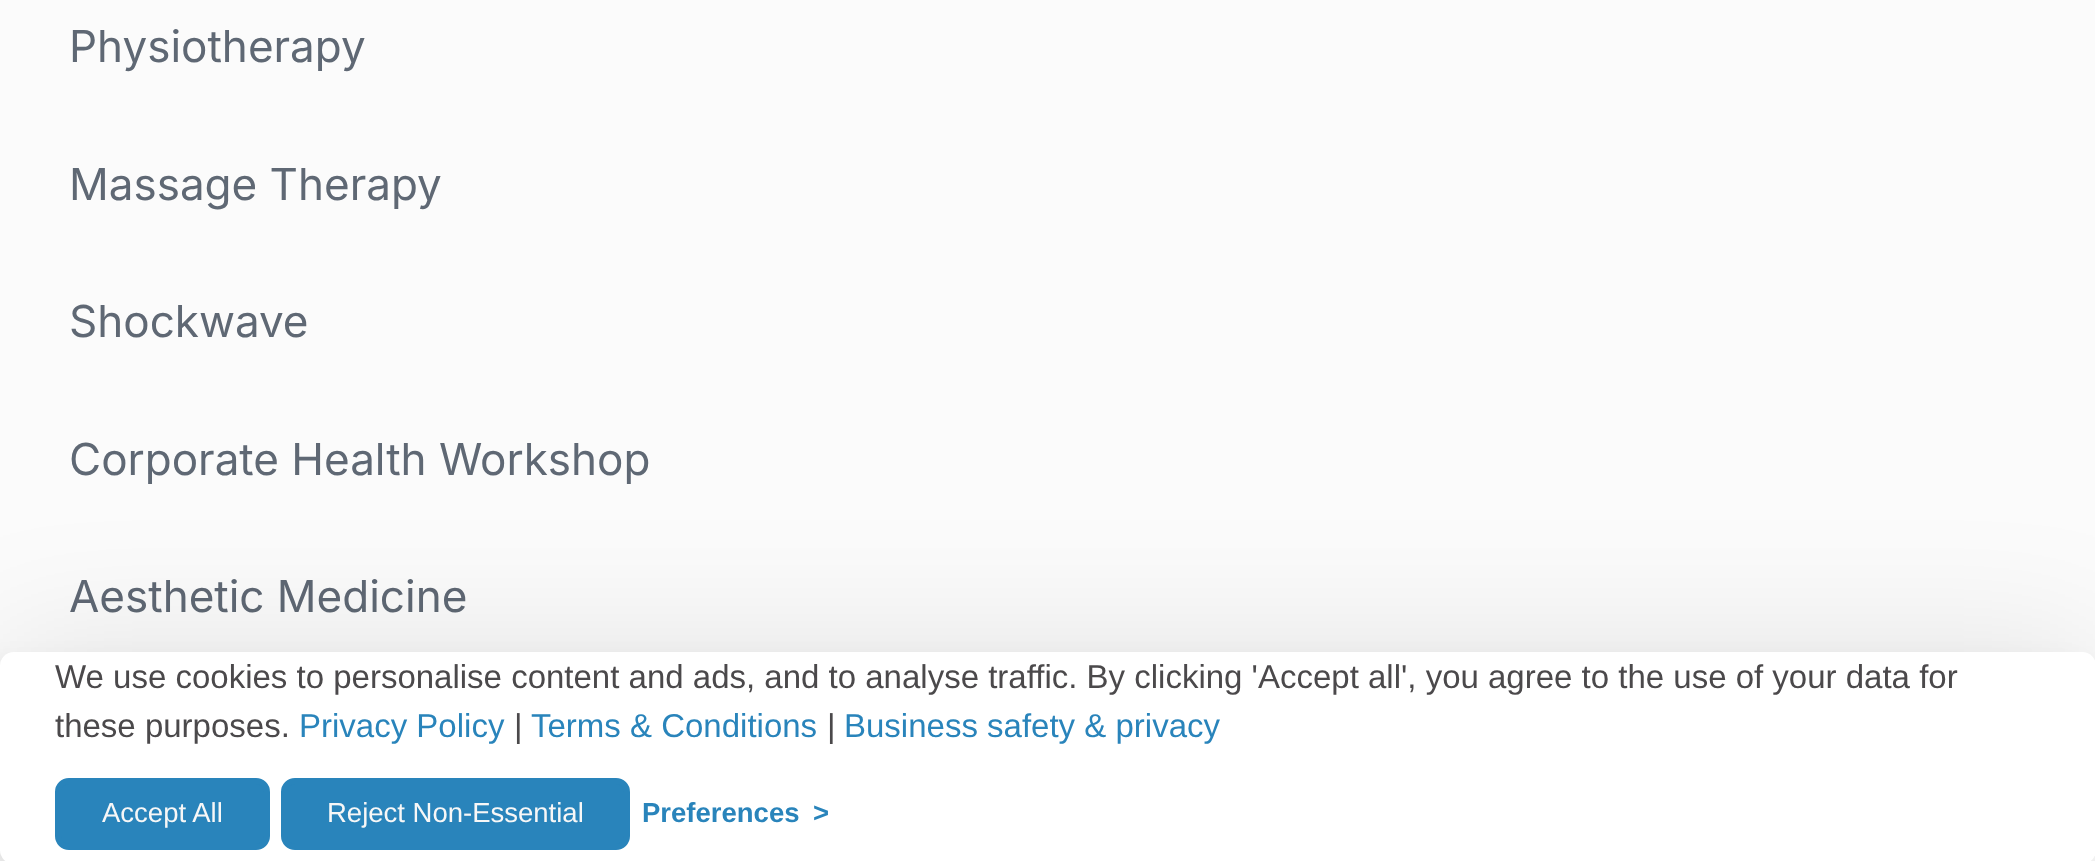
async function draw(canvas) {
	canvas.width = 2095;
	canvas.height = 861;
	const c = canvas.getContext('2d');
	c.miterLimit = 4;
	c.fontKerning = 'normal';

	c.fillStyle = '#fbfbfb';
	c.fillRect(0, 0, 2095, 861);
	c.font = '44px Inter';
	c.fillStyle = '#5f6874';
	for (const [text, x, y] of [
		['Physiotherapy', 69, 62],
		['Massage Therapy', 69, 200],
		['Shockwave', 69, 337],
		['Corporate Health Workshop', 69, 475],
		['Aesthetic Medicine', 69, 612],
	]) {
		c.fillText(text, x, y);
	}
	c.fillStyle = '#0000001a';
	c.filter = 'blur(69px)';
	c.beginPath();
	c.roundRect(0, 652, 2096, 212, 14);
	c.fill();
	c.filter = 'none';
	c.fillStyle = '#00000012';
	c.filter = 'blur(14px)';
	c.beginPath();
	c.roundRect(-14, 666, 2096, 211, 14);
	c.fill();
	c.filter = 'none';
	c.fillStyle = '#fff';
	c.beginPath();
	c.roundRect(0, 652, 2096, 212, 14);
	c.fill();
	c.font = '33px Liberation Sans';
	c.fillStyle = '#4b494b';
	c.fillText('We use cookies to personalise content and ads, and to analyse traffic. By clicking \'Accept all\', you agree to the use of your data for', 55, 688);
	c.fillText('these purposes.', 55, 737);
	c.fillStyle = '#2984bb';
	c.fillText('Privacy Policy', 299, 737);
	c.fillStyle = '#4b494b';
	c.fillText('|', 514, 737);
	c.fillStyle = '#2984bb';
	c.fillText('Terms & Conditions', 531, 737);
	c.fillStyle = '#4b494b';
	c.fillText('|', 827, 737);
	c.fillStyle = '#2984bb';
	c.fillText('Business safety & privacy', 844, 737);
	c.beginPath();
	c.roundRect(58, 781, 209, 66, 11);
	c.fill();
	c.strokeStyle = '#2984bb';
	c.lineWidth = 6;
	c.stroke();
	c.font = '27.5px Liberation Sans';
	c.fillStyle = '#f7f7f7';
	c.fillText('Accept All', 102, 822);
	c.fillStyle = '#2984bb';
	c.beginPath();
	c.roundRect(284, 781, 343, 66, 11);
	c.fill();
	c.stroke();
	c.fillStyle = '#f7f7f7';
	c.fillText('Reject Non-Essential', 327, 822);
	c.font = 'bold 27.5px Liberation Sans';
	c.fillStyle = '#2984bb';
	c.fillText('Preferences', 642, 822);
	c.fillText('>', 813, 822);
}

draw(document.querySelector('canvas'));
